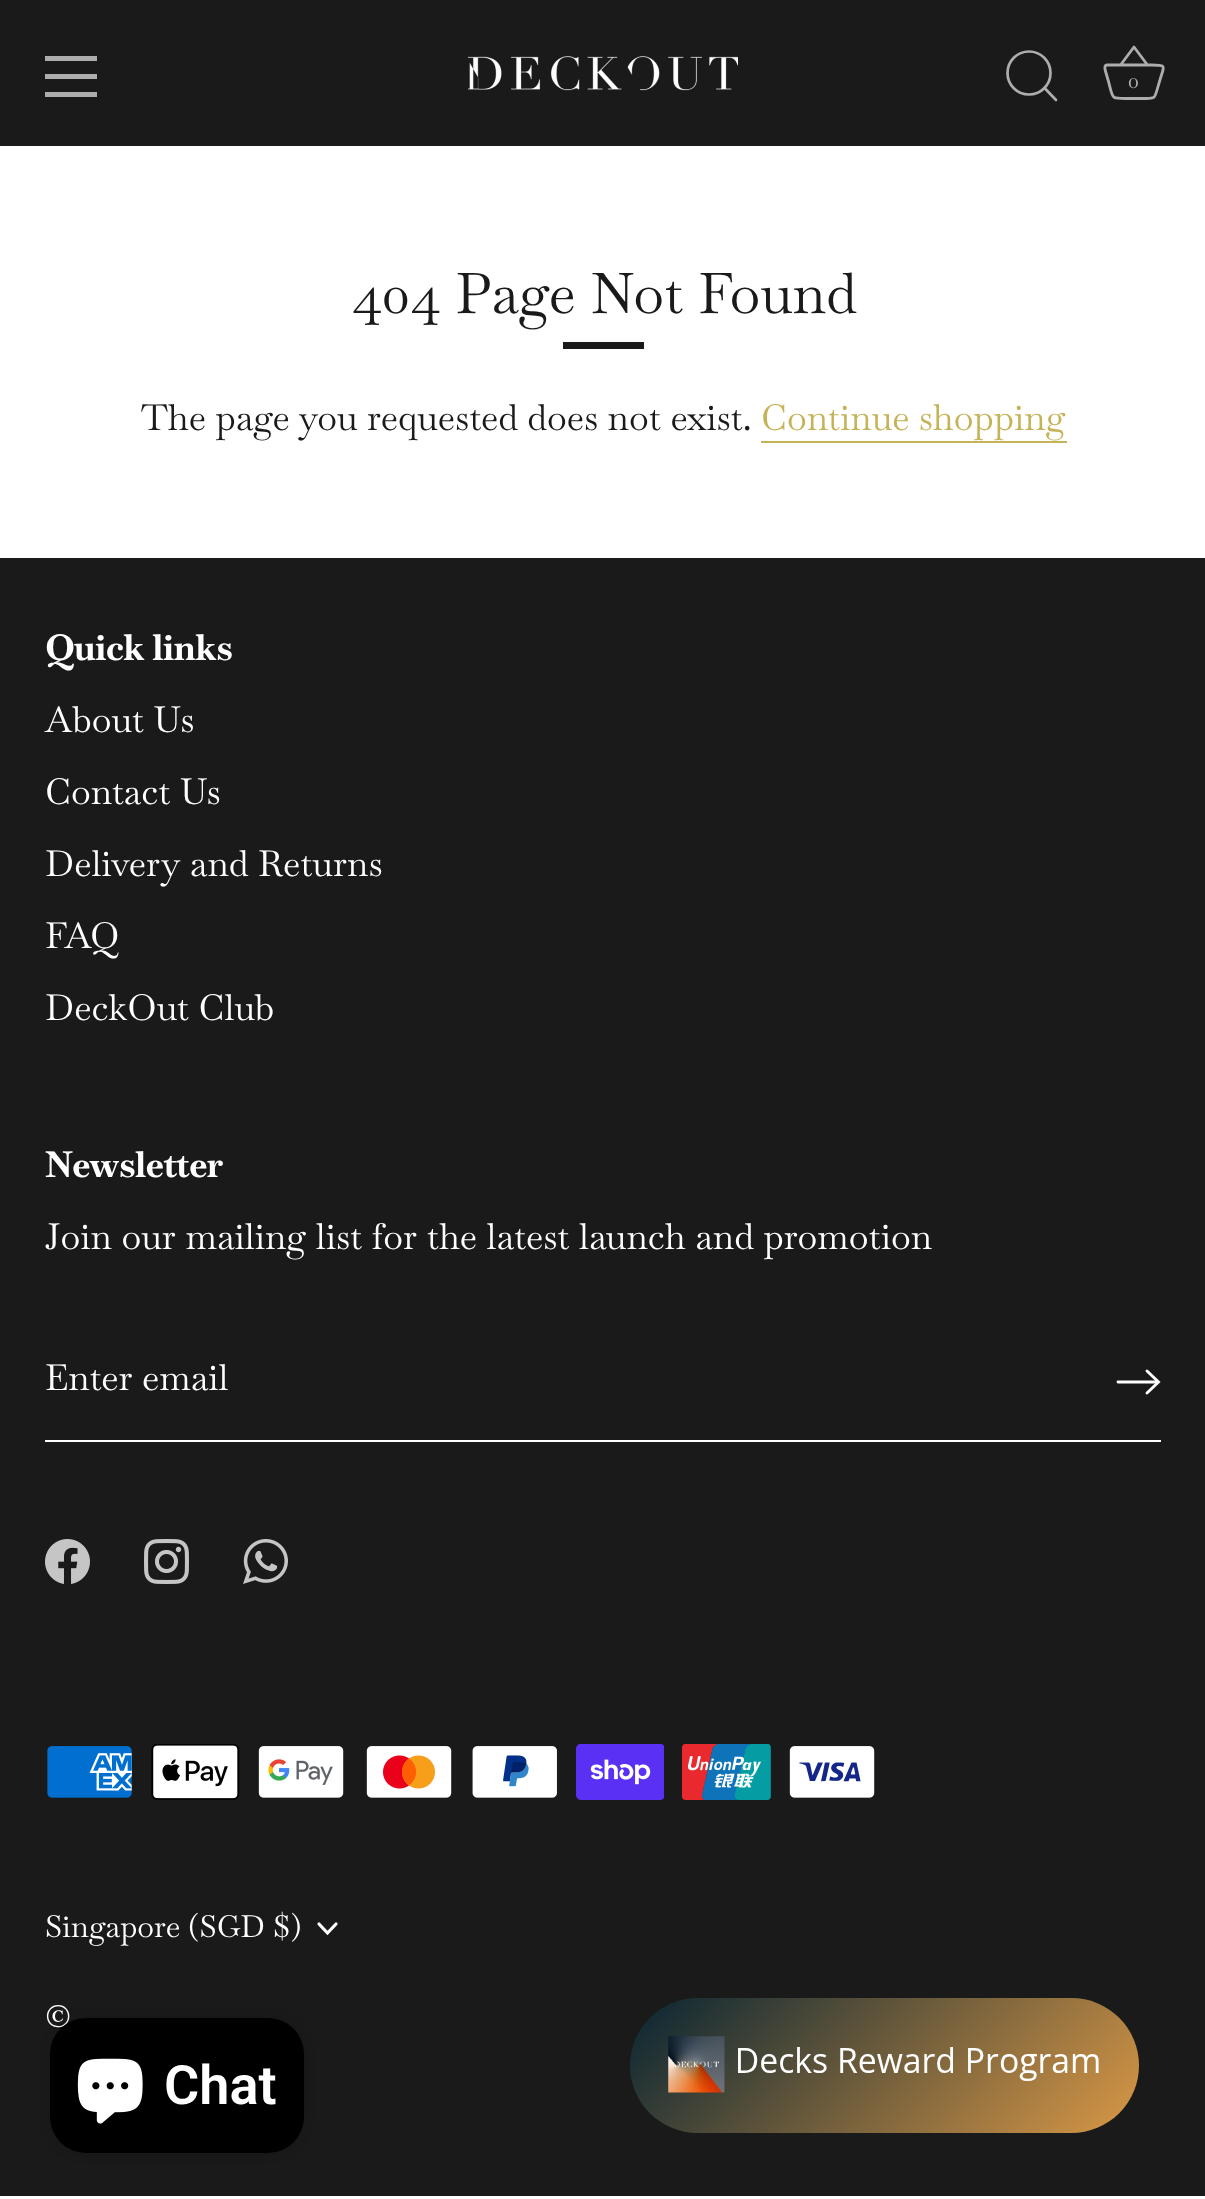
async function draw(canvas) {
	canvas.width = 1205;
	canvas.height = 2199;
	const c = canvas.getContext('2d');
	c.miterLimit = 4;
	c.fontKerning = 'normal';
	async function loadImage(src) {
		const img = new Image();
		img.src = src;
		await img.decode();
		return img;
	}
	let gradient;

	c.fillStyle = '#fff';
	c.fillRect(0, 0, 1205, 2199);
	for (const [x, y, w, h, color] of [
		[0, 0, 1205, 146, '#1a1a1a'],
		[45, 56, 52, 5, '#adadad'],
		[45, 74, 52, 5, '#adadad'],
		[45, 92, 52, 5, '#adadad'],
	]) {
		c.fillStyle = color;
		c.fillRect(x, y, w, h);
	}
	c.drawImage(await loadImage('img1.png'), 468, 56, 270, 35);
	c.beginPath();
	c.arc(1029, 73, 21.5, 0, 2 * Math.PI);
	c.strokeStyle = '#adadad';
	c.lineWidth = 2.7;
	c.stroke();
	c.beginPath();
	c.moveTo(1056, 100);
	c.lineTo(1044.5, 88);
	c.lineCap = 'round';
	c.lineJoin = 'round';
	c.stroke();
	c.beginPath();
	c.moveTo(1107.5, 65);
	c.bezierCurveTo(1103, 65, 1105.5, 71, 1106, 73);
	c.lineTo(1108.5, 81.5);
	c.bezierCurveTo(1113.5, 99.5, 1110, 98.5, 1128.5, 98.5);
	c.lineTo(1145, 98.5);
	c.bezierCurveTo(1154, 98.5, 1154.5, 99, 1157, 90);
	c.lineTo(1159.5, 81.5);
	c.bezierCurveTo(1164, 65.5, 1167.5, 65, 1151.5, 65);
	c.lineTo(1107.5, 65);
	c.moveTo(1120.5, 65);
	c.lineTo(1134, 47);
	c.lineTo(1147.5, 65);
	c.lineWidth = 2.8;
	c.lineCap = 'butt';
	c.stroke();
	c.font = '22px Baskervville';
	c.fillText('0', 1128, 88);
	c.font = '56.25px Baskervville';
	c.fillStyle = '#1a1a1a';
	c.fillText('404 Page Not Found', 351, 313);
	c.fillRect(563, 342, 81, 7);
	c.font = '36px Baskervville';
	c.fillText('The page you requested does not exist.', 141, 430);
	c.fillStyle = '#c5b358';
	c.fillText('Continue shopping', 761, 430);
	c.fillRect(761, 441, 306, 2);
	c.fillStyle = '#1a1a1a';
	c.fillRect(0, 558, 1205, 1638);
	c.font = 'bold 36px Baskervville';
	c.fillStyle = '#fff';
	c.fillText('Quick links', 45, 660);
	c.font = '36px Baskervville';
	for (const [text, x, y] of [
		['About Us', 45, 732],
		['Contact Us', 45, 804],
		['Delivery and Returns', 45, 876],
		['FAQ', 45, 948],
		['DeckOut Club', 45, 1020],
	]) {
		c.fillText(text, x, y);
	}
	c.font = 'bold 36px Baskervville';
	c.fillText('Newsletter', 45, 1177);
	c.font = '36px Baskervville';
	c.fillText('Join our mailing list for the latest launch and promotion', 45, 1249);
	c.fillRect(45, 1440, 1116, 2);
	c.fillText('Enter email', 45, 1390);
	c.beginPath();
	c.moveTo(1147, 1393);
	c.lineTo(1158.5, 1382);
	c.lineTo(1147, 1371);
	c.strokeStyle = '#fff';
	c.lineWidth = 2.9;
	c.lineCap = 'round';
	c.lineJoin = 'miter';
	c.stroke();
	c.beginPath();
	c.moveTo(1157, 1382);
	c.lineTo(1118, 1382);
	c.lineJoin = 'round';
	c.stroke();
	c.drawImage(await loadImage('img2.png'), 45, 1539, 45, 45);
	c.drawImage(await loadImage('img3.png'), 144, 1539, 45, 45);
	c.drawImage(await loadImage('img4.png'), 243, 1539, 45, 45);
	c.drawImage(await loadImage('img5.png'), 47, 1746, 85, 52);
	c.drawImage(await loadImage('img6.png'), 151, 1744, 89, 56);
	c.drawImage(await loadImage('img7.png'), 258, 1746, 86, 52);
	c.drawImage(await loadImage('img8.png'), 366, 1746, 86, 52);
	c.drawImage(await loadImage('img9.png'), 472, 1746, 85, 52);
	c.drawImage(await loadImage('img10.png'), 576, 1744, 88, 56);
	c.drawImage(await loadImage('img11.png'), 682, 1744, 89, 56);
	c.drawImage(await loadImage('img12.png'), 789, 1746, 86, 52);
	c.font = '30.5px Baskervville';
	c.fillText('Singapore (SGD $)', 45, 1937);
	c.beginPath();
	c.moveTo(319, 1924);
	c.lineTo(327.5, 1933);
	c.lineTo(336, 1924);
	c.lineWidth = 3.2;
	c.lineJoin = 'miter';
	c.stroke();
	c.fillText('©', 45, 2027);
	c.fillStyle = '#00000026';
	c.filter = 'blur(5.5px)';
	c.beginPath();
	c.roundRect(50, 2018, 254, 135, 36);
	c.fill();
	c.filter = 'none';
	c.fillStyle = '#000';
	c.beginPath();
	c.roundRect(50, 2018, 254, 135, 36);
	c.fill();
	c.drawImage(await loadImage('img13.png'), 77, 2058, 66, 66);
	c.font = '600 54px Roboto';
	c.fillStyle = '#fff';
	c.fillText('Chat', 164, 2104);
	gradient = c.createLinearGradient(723, 1905, 1045, 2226);
	gradient.addColorStop(0, '#082432');
	gradient.addColorStop(1, '#d99846');
	c.fillStyle = gradient;
	c.beginPath();
	c.roundRect(630, 1998, 509, 135, 67.5);
	c.fill();
	c.drawImage(await loadImage('img14.png'), 668, 2036, 431, 57);
}

draw(document.querySelector('canvas'));
